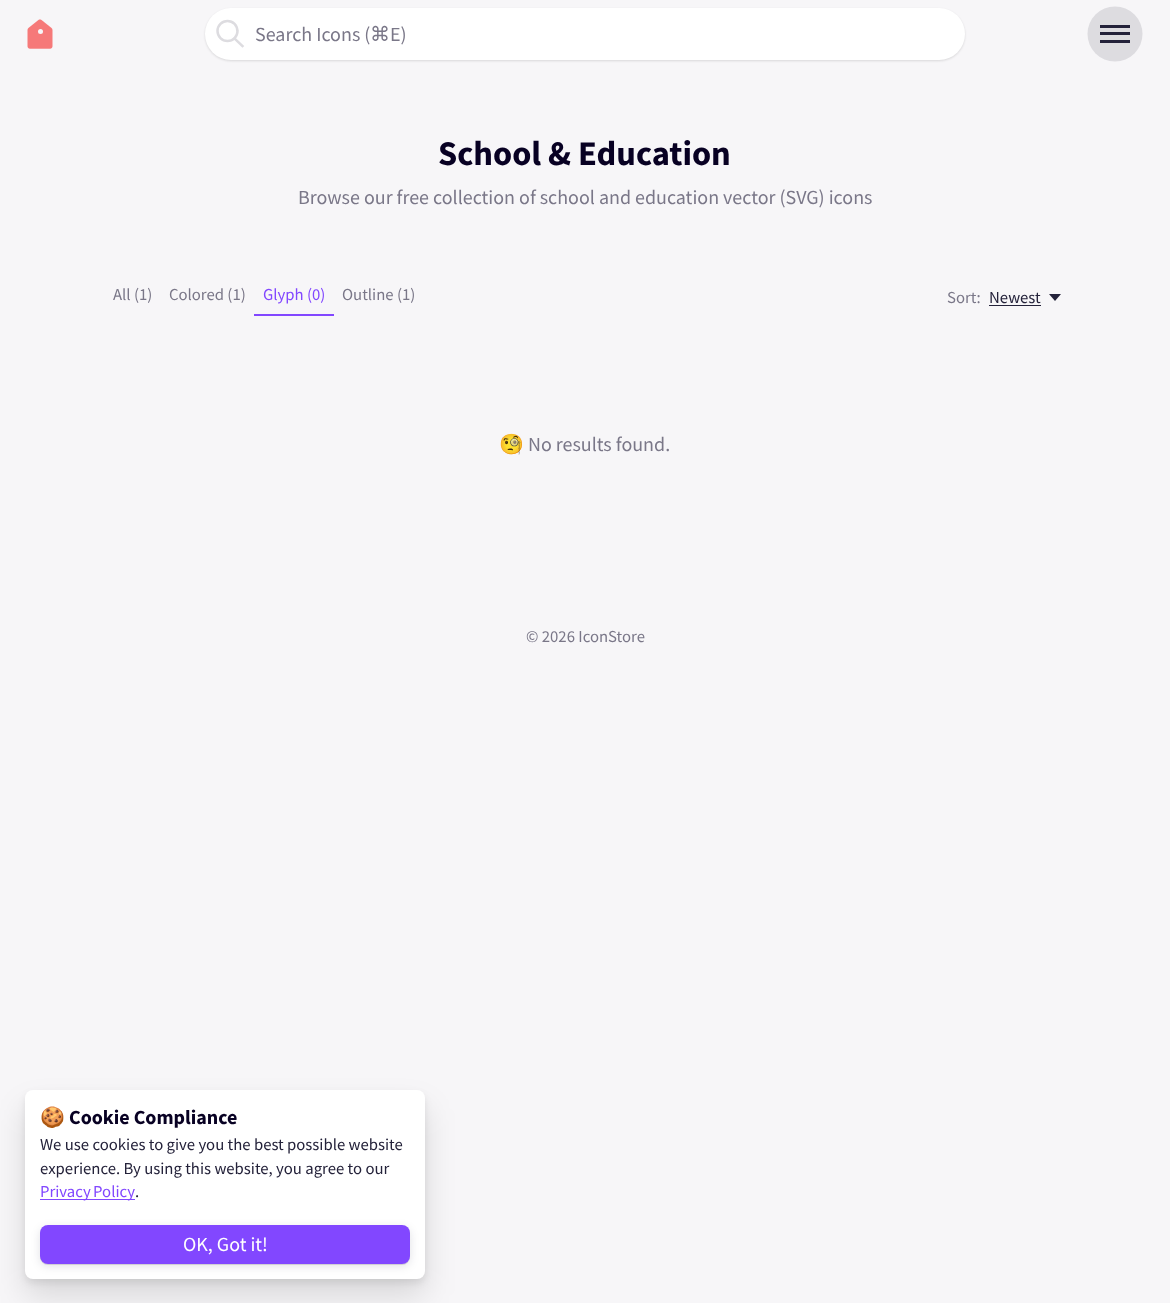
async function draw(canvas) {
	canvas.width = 1170;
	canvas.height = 1303;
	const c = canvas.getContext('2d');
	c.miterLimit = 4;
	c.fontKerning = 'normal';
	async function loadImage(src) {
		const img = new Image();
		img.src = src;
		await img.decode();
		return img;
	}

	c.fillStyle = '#f7f6f8';
	c.fillRect(0, 0, 1170, 1303);
	c.drawImage(await loadImage('img1.png'), 27, 19, 26, 30);
	c.beginPath();
	c.arc(40.5, 31.5, 2.5, 0, 2 * Math.PI);
	c.fill();
	c.fillStyle = '#0000001f';
	c.filter = 'blur(1px)';
	c.beginPath();
	c.roundRect(205, 9, 760, 52, 26);
	c.fill();
	c.filter = 'none';
	c.fillStyle = '#fff';
	c.beginPath();
	c.roundRect(205, 8, 760, 52, 26);
	c.fill();
	c.beginPath();
	c.moveTo(242.5, 46);
	c.lineTo(234.5, 38.5);
	c.strokeStyle = '#dddce0';
	c.lineWidth = 2.5;
	c.lineCap = 'square';
	c.stroke();
	c.beginPath();
	c.arc(227.5, 31, 10, 0, 2 * Math.PI);
	c.stroke();
	c.font = '20px Source Sans Pro';
	c.fillStyle = '#7a7788';
	c.fillText('Search Icons (', 255, 41);
	c.font = '20px DejaVu Sans';
	c.fillText('⌘', 370, 41);
	c.font = '20px Source Sans Pro';
	c.fillText('E)', 390, 41);
	c.fillStyle = '#dddce0';
	c.beginPath();
	c.arc(1115, 34, 27.5, 0, 2 * Math.PI);
	c.fill();
	for (const [x, y, w, h, color] of [
		[1100, 32, 30, 3, '#24223a'],
		[1100, 25, 30, 3, '#24223a'],
		[1100, 40, 30, 3, '#24223a'],
	]) {
		c.fillStyle = color;
		c.fillRect(x, y, w, h);
	}
	c.font = 'bold 34.5px Source Sans Pro';
	c.fillStyle = '#080123';
	c.fillText('School & Education', 438, 165);
	c.font = '20px Source Sans Pro';
	c.fillStyle = '#7a7788';
	c.fillText('Browse our free collection of school and education vector (SVG) icons', 298, 204);
	c.font = '16.7px Source Sans Pro';
	c.fillText('All (1)', 113, 300);
	c.fillText('Colored (1)', 169, 300);
	c.fillStyle = '#8247ff';
	c.fillRect(254, 314, 80, 2);
	c.fillText('Glyph (0)', 263, 300);
	c.fillStyle = '#7a7788';
	c.fillText('Outline (1)', 342, 300);
	c.fillText('Sort:', 947, 303);
	c.fillStyle = '#24223a';
	c.fillText('Newest', 989, 303);
	c.fillRect(989, 305, 52, 1);
	c.beginPath();
	c.moveTo(1049, 294);
	c.lineTo(1055, 301);
	c.lineTo(1061, 294);
	c.closePath();
	c.fill();
	c.font = '20px Noto Color Emoji';
	c.fillStyle = '#7a7788';
	c.fillText('🧐', 499, 451);
	c.font = '20px Source Sans Pro';
	c.fillText('No results found.', 528, 451);
	c.font = '16.7px Source Sans Pro';
	c.fillText('© 2026 IconStore', 526, 642);
	c.fillStyle = '#0000001f';
	c.filter = 'blur(15.5px)';
	c.beginPath();
	c.roundRect(25, 1108, 400, 188, 8);
	c.fill();
	c.filter = 'none';
	c.fillStyle = '#00000014';
	c.filter = 'blur(3.5px)';
	c.beginPath();
	c.roundRect(25, 1094, 400, 189, 8);
	c.fill();
	c.filter = 'none';
	c.fillStyle = '#fff';
	c.beginPath();
	c.roundRect(25, 1090, 400, 189, 8);
	c.fill();
	c.font = 'bold 20px Noto Color Emoji';
	c.fillStyle = '#080123';
	c.fillText('🍪', 40, 1124);
	c.font = 'bold 20px Source Sans Pro';
	c.fillText('Cookie Compliance', 69, 1124);
	c.font = '16.7px Source Sans Pro';
	c.fillStyle = '#24223a';
	c.fillText('We use cookies to give you the best possible website', 40, 1150);
	c.fillText('experience. By using this website, you agree to our', 40, 1174);
	c.fillStyle = '#8247ff';
	c.fillRect(40, 1199, 95, 1);
	c.wordSpacing = '-1px';
	c.fillText('Privacy Policy', 40, 1197);
	c.wordSpacing = '0px';
	c.fillStyle = '#24223a';
	c.fillText('.', 135, 1197);
	c.fillStyle = '#0801231f';
	c.filter = 'blur(0.5px)';
	c.beginPath();
	c.roundRect(40, 1226, 370, 39, 8);
	c.fill();
	c.filter = 'none';
	c.filter = 'blur(5px)';
	c.beginPath();
	c.roundRect(40, 1228, 370, 38, 8);
	c.fill();
	c.filter = 'none';
	c.fillStyle = '#8247ff';
	c.beginPath();
	c.roundRect(40, 1225, 370, 39, 8);
	c.fill();
	c.font = '20px Source Sans Pro';
	c.fillStyle = '#fff';
	c.fillText('OK, Got it!', 183, 1251);
}

draw(document.querySelector('canvas'));
